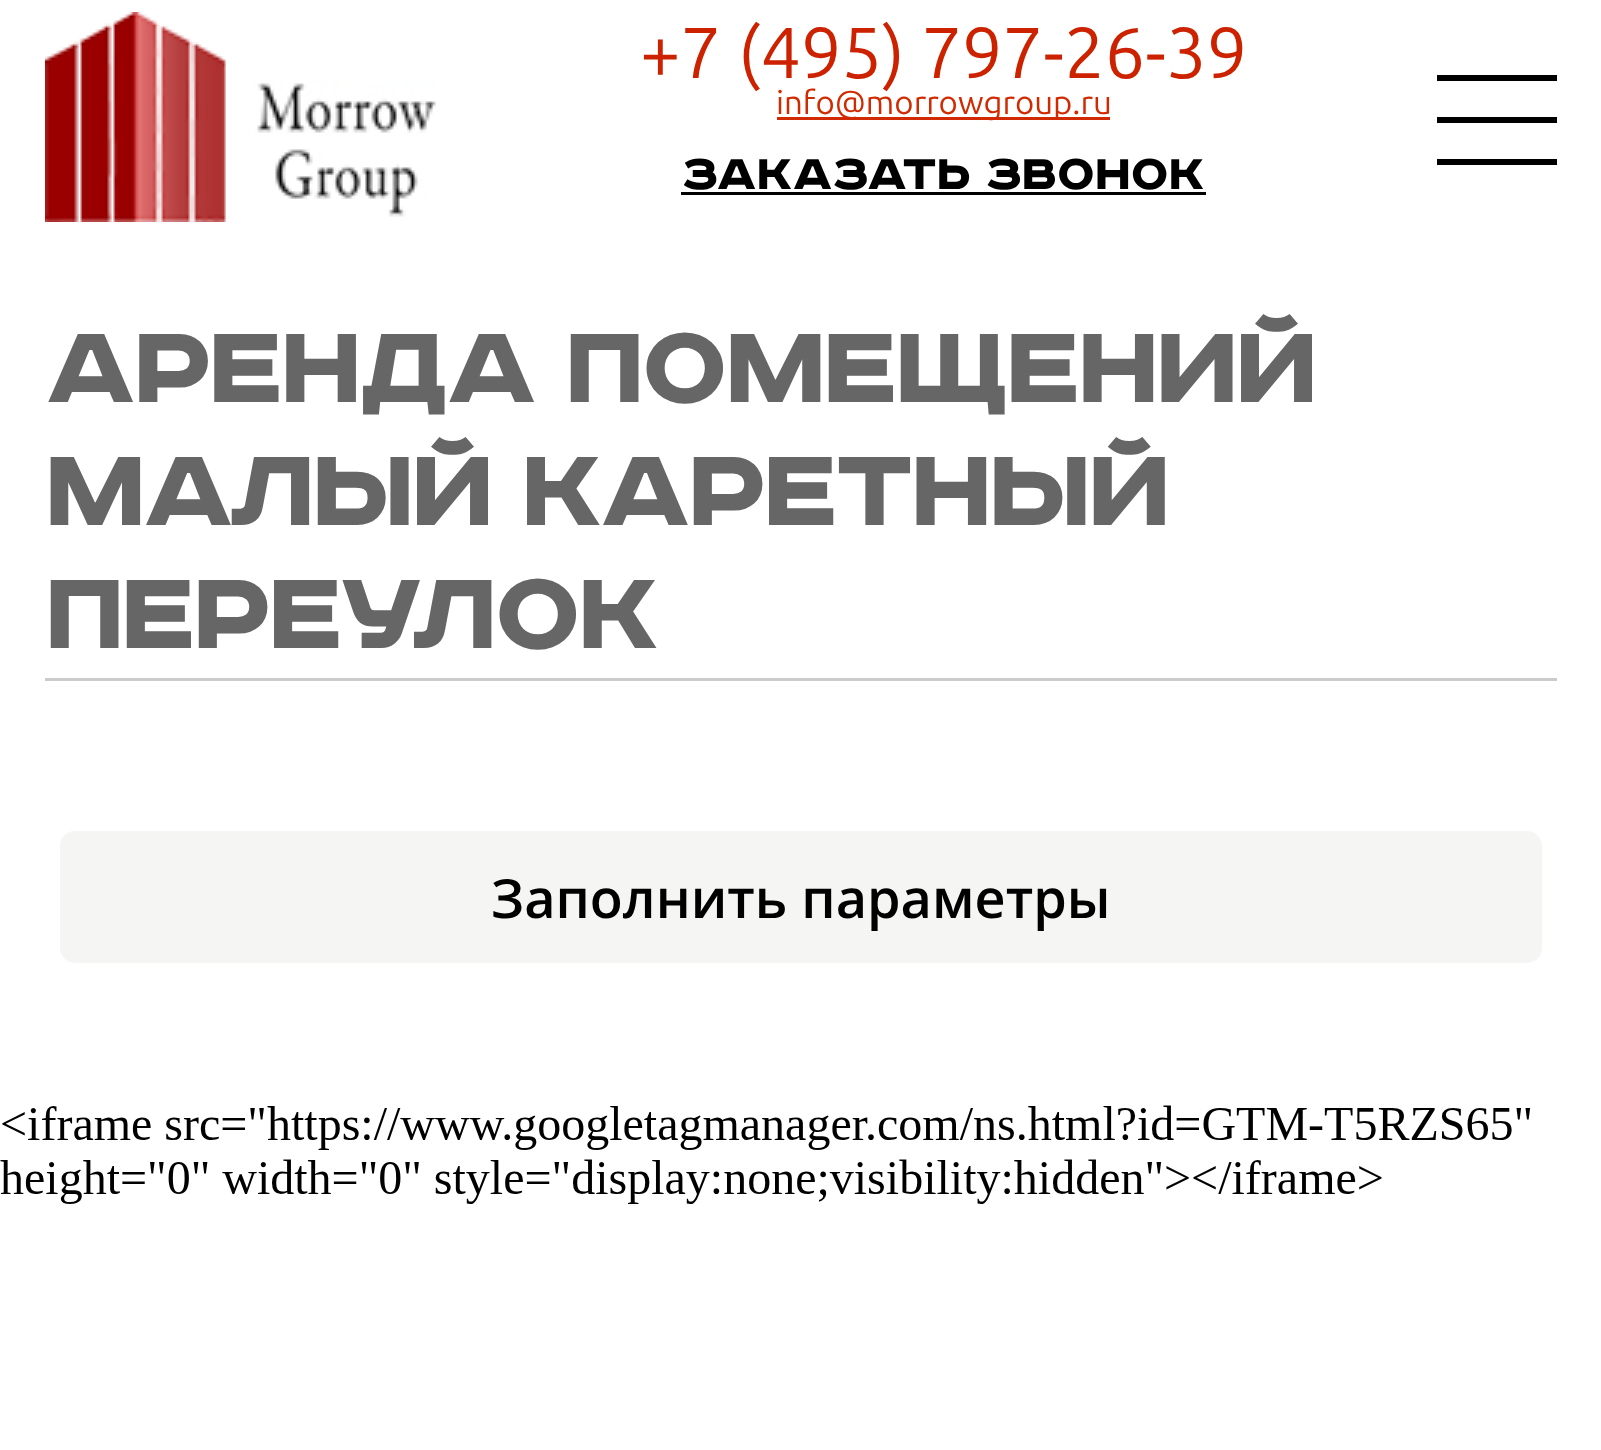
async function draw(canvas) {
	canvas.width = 1601;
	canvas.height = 1450;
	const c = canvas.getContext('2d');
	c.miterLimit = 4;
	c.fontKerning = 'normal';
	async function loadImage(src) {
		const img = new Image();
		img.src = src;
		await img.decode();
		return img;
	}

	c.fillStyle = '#fff';
	c.fillRect(0, 0, 1601, 1450);
	c.drawImage(await loadImage('img1.png'), 45, 12, 391, 210);
	c.font = '72px Ubuntu';
	c.fillStyle = '#c20';
	c.fillText('+7 (495) 797-26-39', 640, 78);
	c.fillStyle = '#d12a01';
	c.fillRect(777, 117, 333, 3);
	c.font = '33px Ubuntu';
	c.fillText('info@morrowgroup.ru', 776, 114);
	c.font = '900 54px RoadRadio';
	c.fillStyle = '#000';
	c.fillText('Заказать звонок', 682, 189);
	for (const [x, y, w, h, color] of [
		[681, 192, 525, 3, '#000'],
		[1437, 75, 120, 6, '#000'],
		[1437, 159, 120, 6, '#000'],
		[1437, 117, 120, 6, '#000'],
		[45, 678, 1512, 3, '#cbcbcb'],
	]) {
		c.fillStyle = color;
		c.fillRect(x, y, w, h);
	}
	c.letterSpacing = '-3px';
	c.font = '900 123px RoadRadio';
	c.fillStyle = '#666';
	for (const [text, x, y] of [
		['АРЕНДА ПОМЕЩЕНИЙ', 45, 402],
		['МАЛЫЙ КАРЕТНЫЙ', 45, 525],
		['ПЕРЕУЛОК', 45, 648],
	]) {
		c.fillText(text, x, y);
	}
	c.fillStyle = '#f5f5f3';
	c.beginPath();
	c.roundRect(60, 831, 1482, 132, 15);
	c.fill();
	c.letterSpacing = '0px';
	c.font = '600 54px Open Sans';
	c.fillStyle = '#000';
	c.fillText('Заполнить параметры', 491, 918);
	c.drawImage(await loadImage('img2.png'), 0, 1105, 1531, 99);
}

draw(document.querySelector('canvas'));
